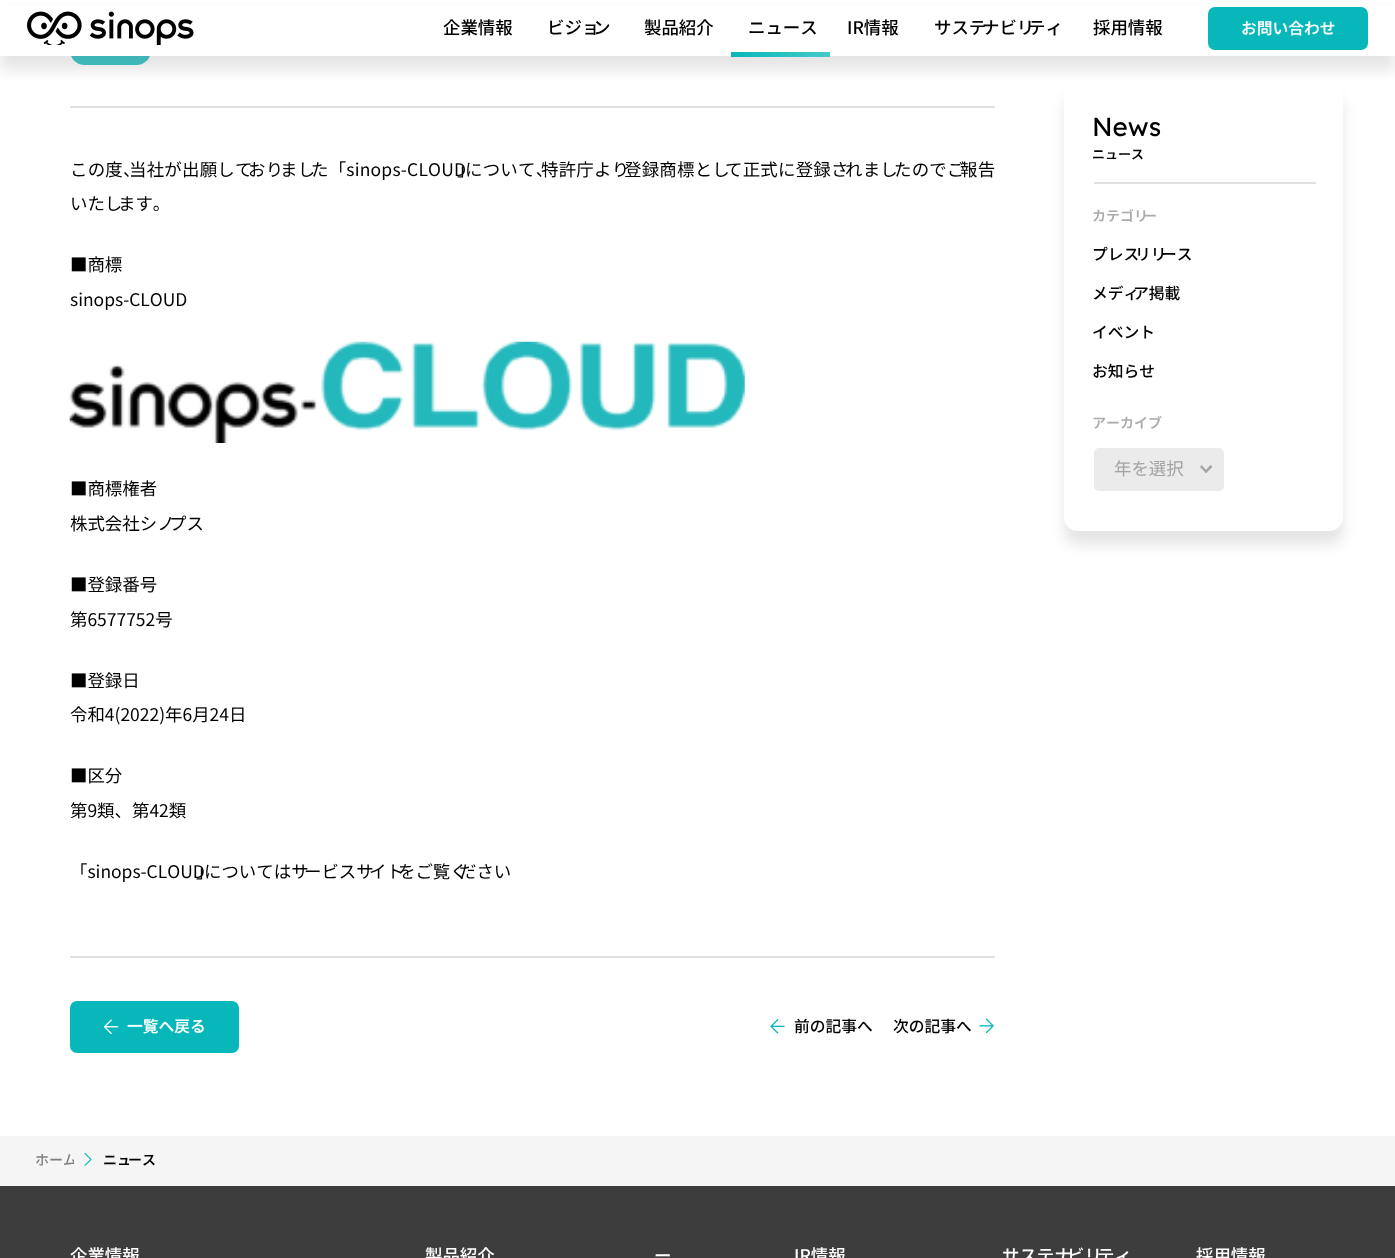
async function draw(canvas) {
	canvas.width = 1395;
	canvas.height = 1258;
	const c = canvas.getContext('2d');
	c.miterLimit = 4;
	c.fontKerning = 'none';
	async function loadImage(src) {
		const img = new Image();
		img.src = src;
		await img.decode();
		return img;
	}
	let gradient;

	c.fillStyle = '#fff';
	c.fillRect(0, 0, 1395, 1258);
	c.fillStyle = '#46c9cb';
	c.beginPath();
	c.roundRect(70, 36, 81, 29, 14.5);
	c.fill();
	c.fillStyle = '#0000001a';
	c.filter = 'blur(7px)';
	c.beginPath();
	c.roundRect(1064, 97, 279, 448, 14);
	c.fill();
	c.filter = 'none';
	c.fillStyle = '#fff';
	c.beginPath();
	c.roundRect(1064, 83, 279, 448, 14);
	c.fill();
	c.fillStyle = '#0000001a';
	c.filter = 'blur(7px)';
	c.beginPath();
	c.rect(0, 14, 1395, 56);
	c.fill();
	c.filter = 'none';
	c.fillStyle = '#fff';
	c.fillRect(0, 5, 1395, 51);
	c.drawImage(await loadImage('img1.png'), 27, 11, 167, 34);
	c.font = '500 17.45px Noto Sans JP';
	c.fillStyle = '#000';
	for (const [text, x, y] of [
		['企業情報', 443, 34],
		['ビジョ', 547, 34],
		['ン', 593, 34],
		['製品紹介', 644, 34],
		['ニュース', 748, 34],
	]) {
		c.fillText(text, x, y);
	}
	gradient = c.createLinearGradient(731, 54, 830, 54);
	gradient.addColorStop(0, '#08b7b9');
	gradient.addColorStop(1, '#46c9cb');
	c.fillStyle = gradient;
	c.fillRect(731, 52, 99, 5);
	c.fillStyle = '#000';
	for (const [text, x, y] of [
		['IR情報', 847, 34],
		['サステ', 934, 34],
		['ナビリ', 982, 34],
		['ティ', 1028, 34],
		['採用情報', 1093, 34],
	]) {
		c.fillText(text, x, y);
	}
	c.fillStyle = '#08b7b9';
	c.beginPath();
	c.roundRect(1209, 8, 158, 41, 6);
	c.fill();
	c.strokeStyle = '#08b7b9';
	c.lineWidth = 2;
	c.stroke();
	c.font = '600 15.75px Noto Sans JP';
	c.fillStyle = '#fff';
	c.fillText('お問い合わせ', 1241, 34);
	c.fillStyle = '#e0e0e0';
	c.fillRect(70, 106, 925, 2);
	c.letterSpacing = '0.22px';
	c.font = '17.45px Noto Sans JP';
	c.fillStyle = '#000';
	c.fillText('この度、', 70, 176);
	c.fillText('当社が出願して', 129, 176);
	c.fillText('おり', 248, 176);
	c.fillText('まし', 280, 176);
	c.fillText('た「sinops-CLOUD', 311, 176);
	c.fillText('」', 457, 176);
	c.fillText('について、', 465, 176);
	c.fillText('特許庁より', 541, 176);
	c.fillText('登録商標とし', 624, 176);
	c.fillText('て正式に登録さ', 725, 176);
	c.fillText('れまし', 845, 176);
	c.fillText('たのでご', 894, 176);
	c.fillText('報告', 960, 176);
	c.letterSpacing = '0px';
	for (const [text, x, y] of [
		['いたし', 70, 210],
		['ます。', 118, 210],
		['■商標', 70, 271],
		['sinops-CLOUD', 70, 306],
	]) {
		c.fillText(text, x, y);
	}
	c.drawImage(await loadImage('img2.png'), 69, 341, 676, 102);
	for (const [text, x, y] of [
		['■商標権者', 70, 495],
		['株式会社シノ', 70, 530],
		['プス', 169, 530],
		['■登録番号', 70, 591],
		['第6577752号', 70, 626],
		['■登録日', 70, 687],
		['令和4(2022)年6月24日', 70, 721],
		['■区分', 70, 782],
	]) {
		c.fillText(text, x, y);
	}
	c.font = '17.45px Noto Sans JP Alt';
	c.fillText('第9類、第42類', 70, 817);
	c.font = '17.45px Noto Sans JP';
	c.fillText('「sinops-CLOUD', 70, 878);
	c.fillText('」', 196, 878);
	c.fillText('についてはサ', 204, 878);
	c.fillText('ービスサ', 304, 878);
	c.fillText('イト', 369, 878);
	c.fillText('をご覧く', 398, 878);
	c.fillText('ださい', 459, 878);
	c.fillStyle = '#e0e0e0';
	c.fillRect(70, 956, 925, 2);
	c.fillStyle = '#08b7b9';
	c.beginPath();
	c.roundRect(71, 1002, 167, 50, 6);
	c.fill();
	c.stroke();
	c.drawImage(await loadImage('img3.png'), 103, 1019, 16, 15);
	c.font = '600 15.75px Noto Sans JP';
	c.fillStyle = '#fff';
	c.fillText('一覧へ戻る', 127, 1032);
	c.drawImage(await loadImage('img4.png'), 770, 1019, 15, 15);
	c.font = '500 15.75px Noto Sans JP';
	c.fillStyle = '#000';
	c.fillText('前の記事へ', 794, 1032);
	c.fillText('次の記事へ', 893, 1032);
	c.drawImage(await loadImage('img5.png'), 979, 1018, 15, 16);
	c.fillStyle = '#e0e0e0';
	c.fillRect(1094, 182, 222, 2);
	c.font = '26px Lexend Deca';
	c.fillStyle = '#000';
	c.fillText('News', 1092, 136);
	c.font = '600 13px Noto Sans JP';
	c.fillText('ニュース', 1092, 159);
	c.font = '600 14px Noto Sans JP';
	c.fillStyle = '#aaa';
	c.fillText('カテゴリ', 1092, 221);
	c.fillText('ー', 1143, 221);
	c.font = '500 15.75px Noto Sans JP';
	c.fillStyle = '#000';
	for (const [text, x, y] of [
		['プレス', 1092, 260],
		['リリ', 1135, 260],
		['ース', 1161, 260],
		['メディ', 1092, 299],
		['ア掲載', 1133, 299],
		['イベント', 1092, 338],
		['お知らせ', 1092, 377],
	]) {
		c.fillText(text, x, y);
	}
	c.font = '600 14px Noto Sans JP';
	c.fillStyle = '#aaa';
	c.fillText('アーカイブ', 1092, 428);
	c.fillStyle = '#ebebeb';
	c.beginPath();
	c.roundRect(1096.5, 450.5, 125, 38, 2.5);
	c.fill();
	c.strokeStyle = '#ebebeb';
	c.lineWidth = 5;
	c.stroke();
	c.font = '17.45px Noto Sans JP';
	c.fillStyle = '#a3a3a3';
	c.fillText('年を選択', 1114, 475);
	c.beginPath();
	c.moveTo(1212.5, 467);
	c.lineTo(1206, 473);
	c.lineTo(1204.5, 471.5);
	c.lineTo(1210.5, 465);
	c.closePath();
	c.fill();
	c.beginPath();
	c.moveTo(1207.5, 471.5);
	c.lineTo(1206, 473);
	c.lineTo(1200, 467);
	c.lineTo(1201.5, 465);
	c.closePath();
	c.fill();
	c.fillStyle = '#f5f5f5';
	c.fillRect(0, 1136, 1395, 50);
	c.save();
	c.beginPath();
	c.rect(36, 1150, 38, 22);
	c.clip();
	c.font = '500 14px Noto Sans JP';
	c.fillStyle = '#808080';
	c.fillText('ホーム', 35, 1165);
	c.restore();
	c.drawImage(await loadImage('img6.png'), 84, 1153, 8, 13);
	c.font = '600 14px Noto Sans JP';
	c.fillStyle = '#000';
	c.fillText('ニュ', 103, 1165);
	c.fillText('ース', 128, 1165);
	c.fillStyle = '#3d3d3d';
	c.fillRect(0, 1186, 1395, 72);
	c.font = '500 17.45px Noto Sans JP';
	c.fillStyle = '#fff';
	for (const [text, x, y] of [
		['企業情報', 70, 1262],
		['製品紹介', 425, 1262],
		['ー', 654, 1262],
		['IR情報', 794, 1262],
		['サステナ', 1002, 1262],
		['ビリ', 1067, 1262],
		['ティ', 1097, 1262],
		['採用情報', 1196, 1262],
	]) {
		c.fillText(text, x, y);
	}
}

draw(document.querySelector('canvas'));
